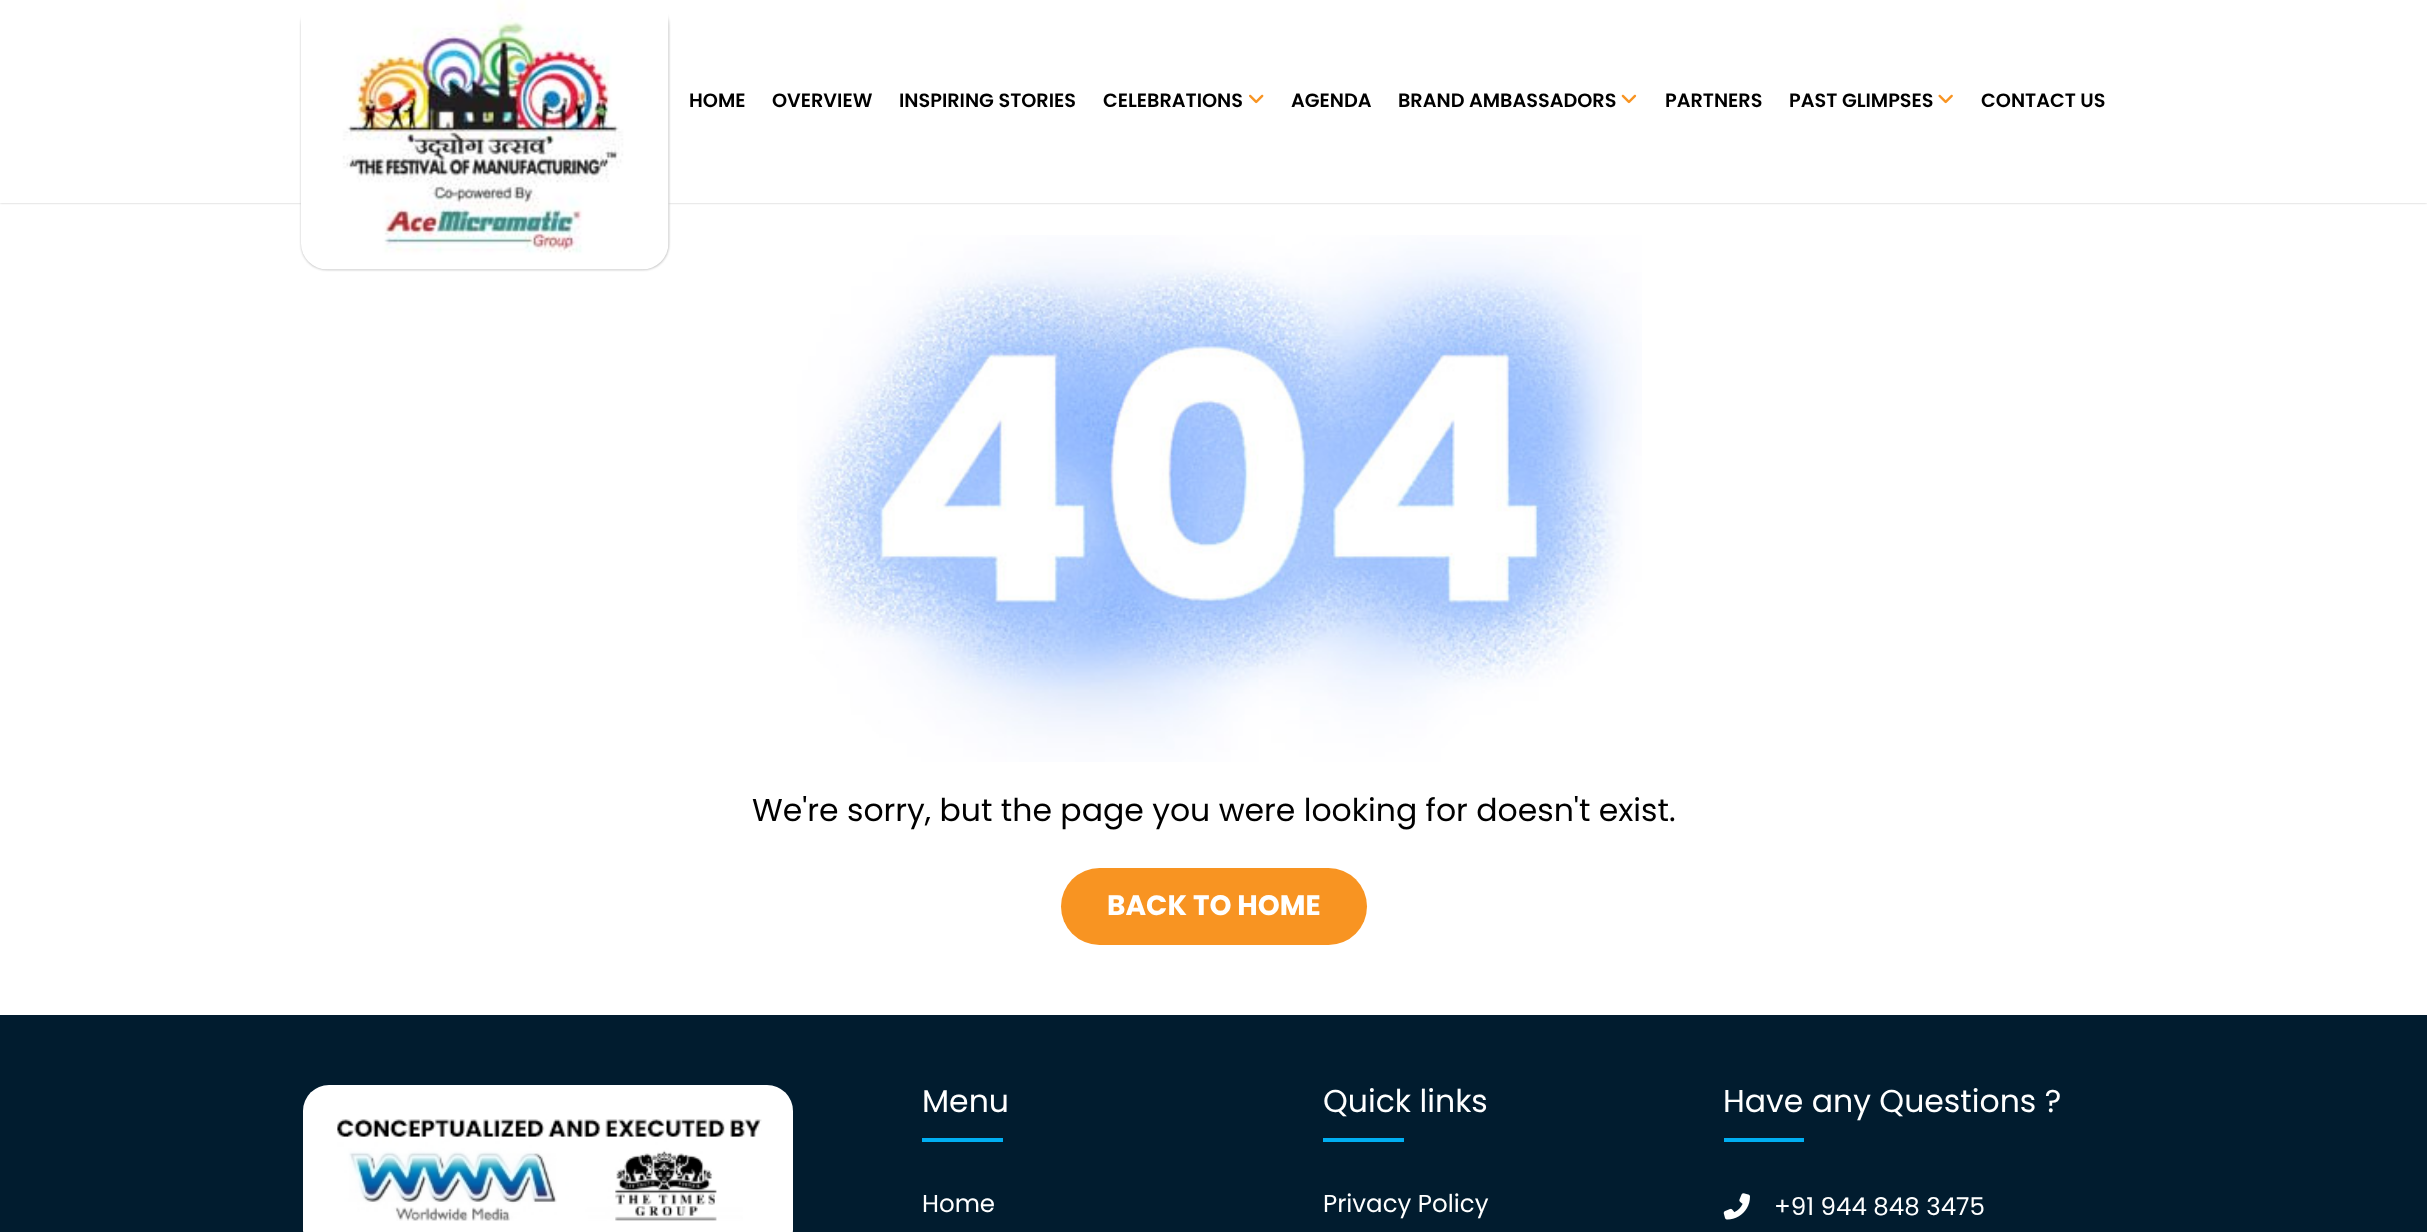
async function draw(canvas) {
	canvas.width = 2427;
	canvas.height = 1232;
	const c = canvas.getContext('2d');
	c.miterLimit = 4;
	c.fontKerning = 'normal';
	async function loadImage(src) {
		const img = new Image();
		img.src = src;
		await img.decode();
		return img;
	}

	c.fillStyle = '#fff';
	c.fillRect(0, 0, 2427, 1232);
	c.save();
	c.beginPath();
	c.rect(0, 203, 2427, 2);
	c.clip();
	c.fillStyle = '#c1c1c1';
	c.filter = 'blur(1px)';
	c.beginPath();
	c.rect(0, 0, 2427, 203);
	c.fill();
	c.filter = 'none';
	c.restore();
	c.fillStyle = '#c1c1c1';
	c.filter = 'blur(1px)';
	c.beginPath();
	c.roundRect(301, 0, 368, 270, 26);
	c.fill();
	c.filter = 'none';
	c.drawImage(await loadImage('img1.png'), 301, 0, 368, 270);
	c.font = '600 19.25px Poppins';
	c.fillStyle = '#000';
	for (const [text, x, y] of [
		['HOME', 689, 107],
		['OVERVIEW', 772, 107],
		['INSPIRING STORIES', 899, 107],
		['CELEBRATIONS', 1103, 107],
	]) {
		c.fillText(text, x, y);
	}
	c.drawImage(await loadImage('img2.png'), 1249, 94, 15, 10);
	c.fillText('AGENDA', 1291, 107);
	c.fillText('BRAND AMBASSADORS', 1398, 107);
	c.drawImage(await loadImage('img3.png'), 1621, 94, 16, 10);
	c.fillText('PARTNERS', 1665, 107);
	c.fillText('PAST GLIMPSES', 1789, 107);
	c.drawImage(await loadImage('img4.png'), 1938, 94, 15, 10);
	c.fillText('CONTACT US', 1981, 107);
	c.drawImage(await loadImage('img5.png'), 797, 235, 845, 527);
	c.font = '31.5px Poppins';
	c.fillText('We\'re sorry, but the page you were looking for doesn\'t exist.', 752, 821);
	c.fillStyle = '#f89422';
	c.beginPath();
	c.roundRect(1061, 868, 306, 77, 38.5);
	c.fill();
	c.font = 'bold 28px Poppins';
	c.fillStyle = '#fff';
	c.fillText('BACK TO HOME', 1107, 915);
	c.fillStyle = '#011c2f';
	c.fillRect(0, 1015, 2427, 217);
	c.fillStyle = '#fff';
	c.beginPath();
	c.roundRect(303, 1085, 490, 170, 26);
	c.fill();
	c.drawImage(await loadImage('img6.png'), 337, 1119, 425, 102);
	c.font = '31.5px Poppins';
	c.fillText('Menu', 922, 1112);
	c.fillStyle = '#00aff3';
	c.fillRect(922, 1138, 81, 4);
	c.font = '24.5px Poppins';
	c.fillStyle = '#fff';
	c.fillText('Home', 922, 1212);
	c.font = '31.5px Poppins';
	c.fillText('Quick links', 1323, 1112);
	c.fillStyle = '#00aff3';
	c.fillRect(1323, 1138, 81, 4);
	c.font = '24.5px Poppins';
	c.fillStyle = '#fff';
	c.fillText('Privacy Policy', 1323, 1212);
	c.font = '31.5px Poppins';
	c.fillText('Have any Questions ?', 1723, 1112);
	c.fillStyle = '#00aff3';
	c.fillRect(1724, 1138, 80, 4);
	c.drawImage(await loadImage('img7.png'), 1723, 1193, 27, 27);
	c.font = '24.5px Poppins';
	c.fillStyle = '#fff';
	c.fillText('+91 944 848 3475', 1774, 1215);
}

draw(document.querySelector('canvas'));
